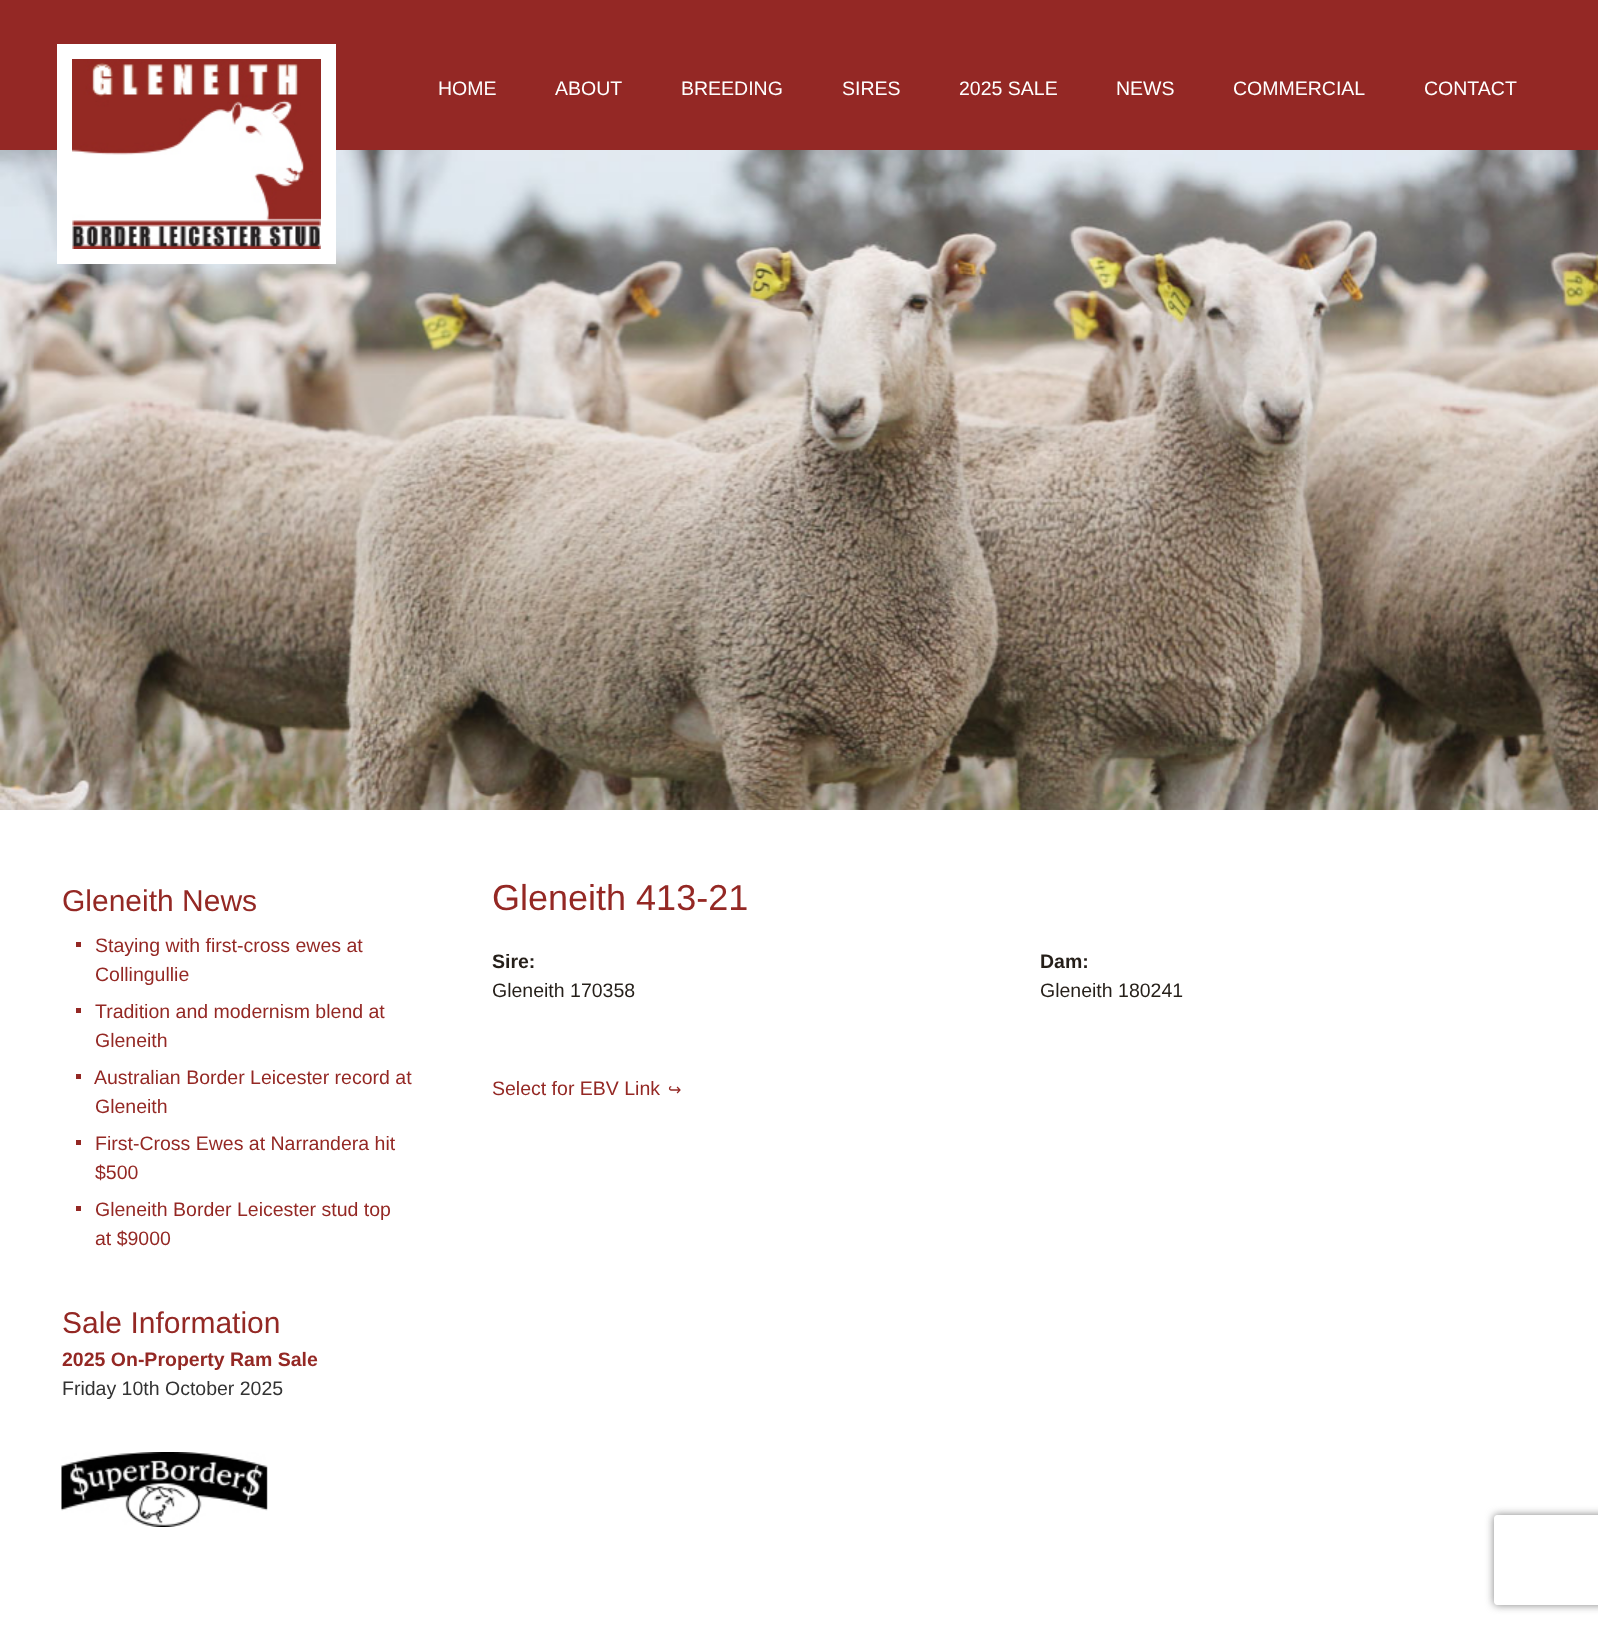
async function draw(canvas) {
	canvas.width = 1598;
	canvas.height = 1626;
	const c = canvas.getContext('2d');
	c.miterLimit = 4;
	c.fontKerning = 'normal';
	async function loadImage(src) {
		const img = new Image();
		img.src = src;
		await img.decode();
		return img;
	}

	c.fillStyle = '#fff';
	c.fillRect(0, 0, 1598, 1626);
	c.fillStyle = '#942825';
	c.fillRect(0, 0, 1598, 150);
	c.drawImage(await loadImage('img2.png'), 0, 150, 1598, 660);
	c.drawImage(await loadImage('img1.png'), 72, 59, 249, 190);
	c.strokeStyle = '#fff';
	c.lineWidth = 15;
	c.strokeRect(64.5, 51.5, 264, 205);
	c.font = '19.5px Liberation Sans';
	c.fillStyle = '#fff';
	for (const [text, x, y] of [
		['HOME', 438, 95],
		['ABOUT', 555, 95],
		['BREEDING', 681, 95],
		['SIRES', 842, 95],
		['2025 SALE', 959, 95],
		['NEWS', 1116, 95],
		['COMMERCIAL', 1233, 95],
		['CONTACT', 1424, 95],
	]) {
		c.fillText(text, x, y);
	}
	c.font = '30px Liberation Sans';
	c.fillStyle = '#942824';
	c.fillText('Gleneith News', 62, 911);
	c.fillRect(76, 942, 5, 5);
	c.font = '19.5px Liberation Sans';
	c.fillText('Staying with first-cross ewes at', 95, 952);
	c.fillText('Collingullie', 95, 981);
	c.fillRect(76, 1008, 5, 5);
	c.fillText('Tradition and modernism blend at', 95, 1018);
	c.fillText('Gleneith', 95, 1047);
	c.fillRect(76, 1074, 5, 5);
	c.fillText('Australian Border Leicester record at', 94, 1084);
	c.fillText('Gleneith', 95, 1113);
	c.fillRect(76, 1140, 5, 5);
	c.fillText('First-Cross Ewes at Narrandera hit', 95, 1150);
	c.fillText('$500', 95, 1179);
	c.fillRect(76, 1206, 5, 5);
	c.fillText('Gleneith Border Leicester stud top', 95, 1216);
	c.fillText('at $9000', 95, 1245);
	c.font = '30px Liberation Sans';
	c.fillText('Sale Information', 62, 1333);
	c.font = 'bold 19.5px Liberation Sans';
	c.fillText('2025 On-Property Ram Sale', 62, 1366);
	c.font = '19.5px Liberation Sans';
	c.fillStyle = '#333';
	c.fillText('Friday 10th October 2025', 62, 1395);
	c.drawImage(await loadImage('img3.png'), 61, 1452, 207, 75);
	c.font = '36px Liberation Sans';
	c.fillStyle = '#942824';
	c.fillText('Gleneith 413-21', 492, 910);
	c.font = 'bold 19.5px Liberation Sans';
	c.fillStyle = '#251f19';
	c.fillText('Sire:', 492, 968);
	c.font = '19.5px Liberation Sans';
	c.fillText('Gleneith 170358', 492, 997);
	c.font = 'bold 19.5px Liberation Sans';
	c.fillText('Dam:', 1040, 968);
	c.font = '19.5px Liberation Sans';
	c.fillText('Gleneith 180241', 1040, 997);
	c.fillStyle = '#942824';
	c.fillText('Select for EBV Link', 492, 1095);
	c.font = '16px DejaVu Sans';
	c.fillText('↪', 668, 1095);
	c.save();
	c.beginPath();
	c.moveTo(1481, 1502);
	c.lineTo(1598, 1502);
	c.lineTo(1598, 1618);
	c.lineTo(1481, 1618);
	c.closePath();
	c.moveTo(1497, 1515);
	c.lineTo(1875, 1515);
	c.bezierCurveTo(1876.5, 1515, 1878, 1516.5, 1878, 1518);
	c.lineTo(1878, 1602);
	c.bezierCurveTo(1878, 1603.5, 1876.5, 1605, 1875, 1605);
	c.lineTo(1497, 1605);
	c.bezierCurveTo(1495.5, 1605, 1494, 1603.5, 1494, 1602);
	c.lineTo(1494, 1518);
	c.bezierCurveTo(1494, 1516.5, 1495.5, 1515, 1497, 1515);
	c.closePath();
	c.clip('evenodd');
	c.fillStyle = '#808080';
	c.filter = 'blur(4px)';
	c.beginPath();
	c.roundRect(1494, 1515, 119, 90, 3);
	c.fill();
	c.filter = 'none';
	c.restore();
}

draw(document.querySelector('canvas'));
